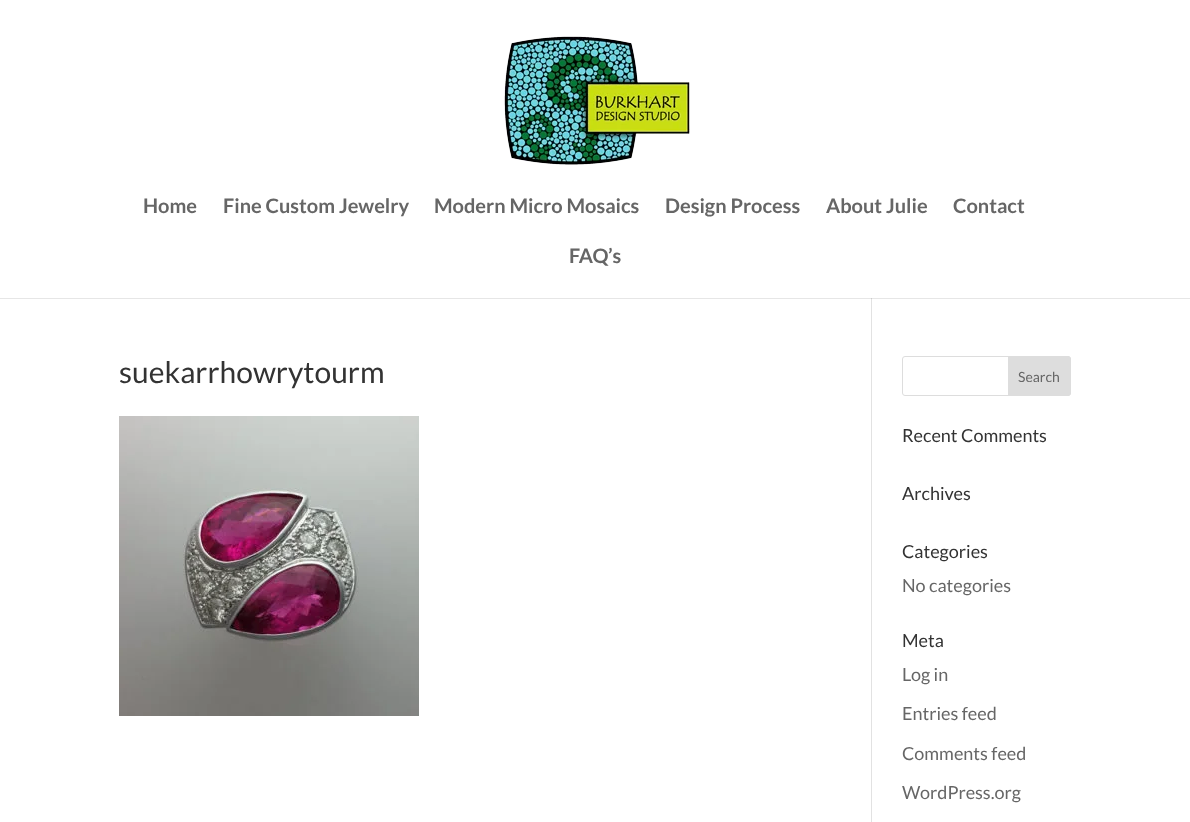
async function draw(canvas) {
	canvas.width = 1190;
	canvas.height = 822;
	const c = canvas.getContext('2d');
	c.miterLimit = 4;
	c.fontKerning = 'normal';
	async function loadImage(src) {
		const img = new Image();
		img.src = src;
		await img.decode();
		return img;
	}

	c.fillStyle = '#fff';
	c.fillRect(0, 0, 1190, 822);
	c.fillStyle = '#e6e6e6';
	c.fillRect(0, 298, 1190, 1);
	c.drawImage(await loadImage('img1.png'), 504, 36, 186, 129);
	c.font = 'bold 20px Lato';
	c.fillStyle = '#666';
	for (const [text, x, y] of [
		['Home', 143, 213],
		['Fine Custom Jewelry', 223, 213],
		['Modern Micro Mosaics', 434, 213],
		['Design Process', 665, 213],
		['About Julie', 826, 213],
		['Contact', 953, 213],
		['FAQ’s', 569, 263],
	]) {
		c.fillText(text, x, y);
	}
	c.fillStyle = '#e2e2e2';
	c.fillRect(871, 298, 1, 524);
	c.fillStyle = '#cbcbcb';
	c.fillRect(871, 298, 1, 1);
	c.font = '30px Lato';
	c.fillStyle = '#333';
	c.fillText('suekarrhowrytourm', 119, 383);
	c.drawImage(await loadImage('img2.png'), 119, 416, 300, 300);
	c.beginPath();
	c.roundRect(902.5, 356.5, 168, 39, 2.5);
	c.strokeStyle = '#ddd';
	c.stroke();
	c.fillStyle = '#ddd';
	c.beginPath();
	c.roundRect(1008.5, 356.5, 62, 39, [0, 2.5, 2.5, 0]);
	c.fill();
	c.stroke();
	c.font = '14px Lato';
	c.fillStyle = '#666';
	c.fillText('Search', 1018, 382);
	c.font = '18px Lato';
	c.fillStyle = '#333';
	for (const [text, x, y] of [
		['Recent Comments', 902, 442],
		['Archives', 902, 500],
		['Categories', 902, 558],
	]) {
		c.fillText(text, x, y);
	}
	c.fillStyle = '#666';
	c.fillText('No categories', 902, 592);
	c.fillStyle = '#333';
	c.fillText('Meta', 902, 647);
	c.fillStyle = '#666';
	for (const [text, x, y] of [
		['Log in', 902, 681],
		['Entries feed', 902, 720],
		['Comments feed', 902, 760],
		['WordPress.org', 902, 799],
	]) {
		c.fillText(text, x, y);
	}
}

draw(document.querySelector('canvas'));
